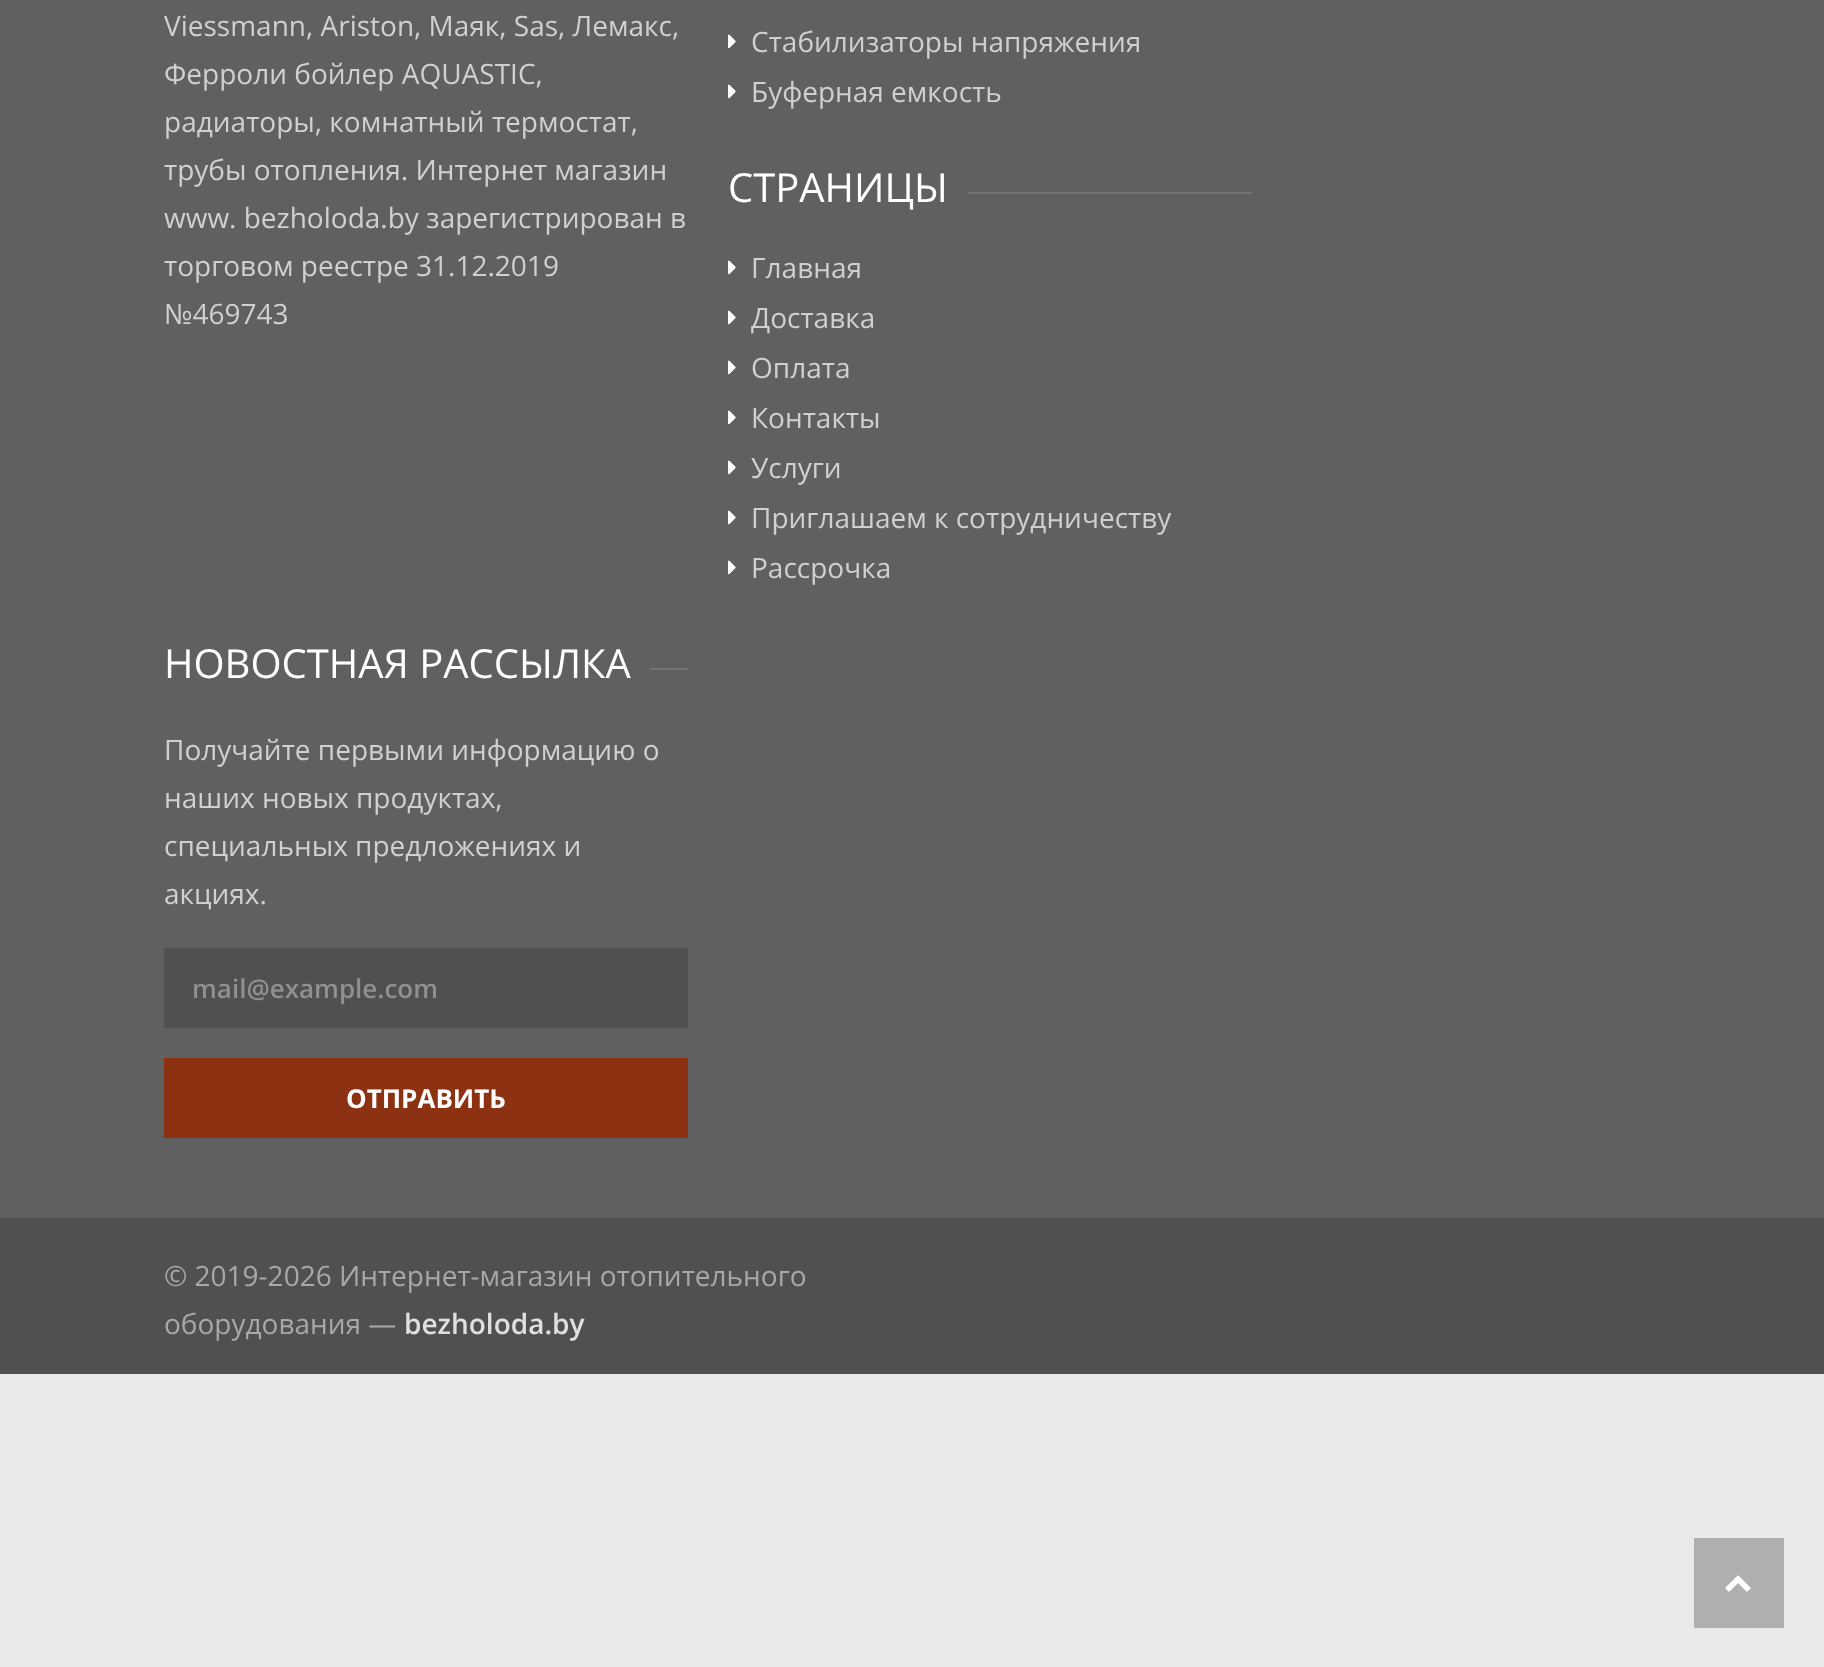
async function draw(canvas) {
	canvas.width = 1824;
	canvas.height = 1667;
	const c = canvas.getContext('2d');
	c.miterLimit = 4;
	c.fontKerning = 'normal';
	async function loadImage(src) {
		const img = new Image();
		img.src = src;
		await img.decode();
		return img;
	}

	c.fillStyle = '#e9e9e9';
	c.fillRect(0, 0, 1824, 1667);
	c.fillStyle = '#606060';
	c.fillRect(0, 0, 1824, 1218);
	c.font = '28px Open Sans';
	c.fillStyle = '#d0d0d0';
	for (const [text, x, y] of [
		['Viessmann, Ariston, Маяк, Sas, Лемакс,', 164, 36],
		['Ферроли бойлер AQUASTIC,', 164, 84],
		['радиаторы, комнатный термостат,', 164, 132],
		['трубы отопления. Интернет магазин', 164, 180],
		['www. bezholoda.by зарегистрирован в', 164, 228],
		['торговом реестре 31.12.2019', 164, 276],
		['№469743', 164, 324],
	]) {
		c.fillText(text, x, y);
	}
	c.drawImage(await loadImage('img1.png'), 728, 34, 8, 15);
	c.fillText('Стабилизаторы напряжения', 751, 52);
	c.drawImage(await loadImage('img1.png'), 728, 84, 8, 15);
	c.fillText('Буферная емкость', 751, 102);
	c.font = '40px Open Sans';
	c.fillStyle = '#fff';
	c.fillText('СТРАНИЦЫ', 728, 202);
	c.fillStyle = '#747474';
	c.fillRect(968, 192, 284, 2);
	c.drawImage(await loadImage('img1.png'), 728, 260, 8, 15);
	c.font = '28px Open Sans';
	c.fillStyle = '#d0d0d0';
	c.fillText('Главная', 751, 278);
	c.drawImage(await loadImage('img1.png'), 728, 310, 8, 15);
	c.fillText('Доставка', 751, 328);
	c.drawImage(await loadImage('img1.png'), 728, 360, 8, 15);
	c.fillText('Оплата', 751, 378);
	c.drawImage(await loadImage('img1.png'), 728, 410, 8, 15);
	c.fillText('Контакты', 751, 428);
	c.drawImage(await loadImage('img1.png'), 728, 460, 8, 15);
	c.fillText('Услуги', 751, 478);
	c.drawImage(await loadImage('img1.png'), 728, 510, 8, 15);
	c.fillText('Приглашаем к сотрудничеству', 751, 528);
	c.drawImage(await loadImage('img1.png'), 728, 560, 8, 15);
	c.fillText('Рассрочка', 751, 578);
	c.font = '40px Open Sans';
	c.fillStyle = '#fff';
	c.fillText('НОВОСТНАЯ РАССЫЛКА', 164, 678);
	c.fillStyle = '#747474';
	c.fillRect(650, 668, 38, 2);
	c.font = '28px Open Sans';
	c.fillStyle = '#d0d0d0';
	for (const [text, x, y] of [
		['Получайте первыми информацию о', 164, 760],
		['наших новых продуктах,', 164, 808],
		['специальных предложениях и', 164, 856],
		['акциях.', 164, 904],
	]) {
		c.fillText(text, x, y);
	}
	c.fillStyle = '#505050';
	c.fillRect(164, 948, 524, 80);
	c.font = '600 26px Open Sans';
	c.fillStyle = '#909090';
	c.fillText('mail@example.com', 192, 998);
	c.fillStyle = '#8d3113';
	c.fillRect(164, 1058, 524, 80);
	c.font = 'bold 26px Open Sans';
	c.fillStyle = '#fff';
	c.fillText('ОТПРАВИТЬ', 346, 1108);
	c.fillStyle = '#505050';
	c.fillRect(0, 1218, 1824, 156);
	c.font = '28px Open Sans';
	c.fillStyle = '#a8a8a8';
	c.fillText('© 2019-2026 Интернет-магазин отопительного', 164, 1286);
	c.fillText('оборудования —', 164, 1334);
	c.font = '600 28px Open Sans';
	c.fillStyle = '#e0e0e0';
	c.fillText('bezholoda.by', 404, 1334);
	c.fillStyle = '#afafaf';
	c.fillRect(1694, 1538, 90, 90);
	c.drawImage(await loadImage('img2.png'), 1725, 1575, 26, 17);
}

draw(document.querySelector('canvas'));
